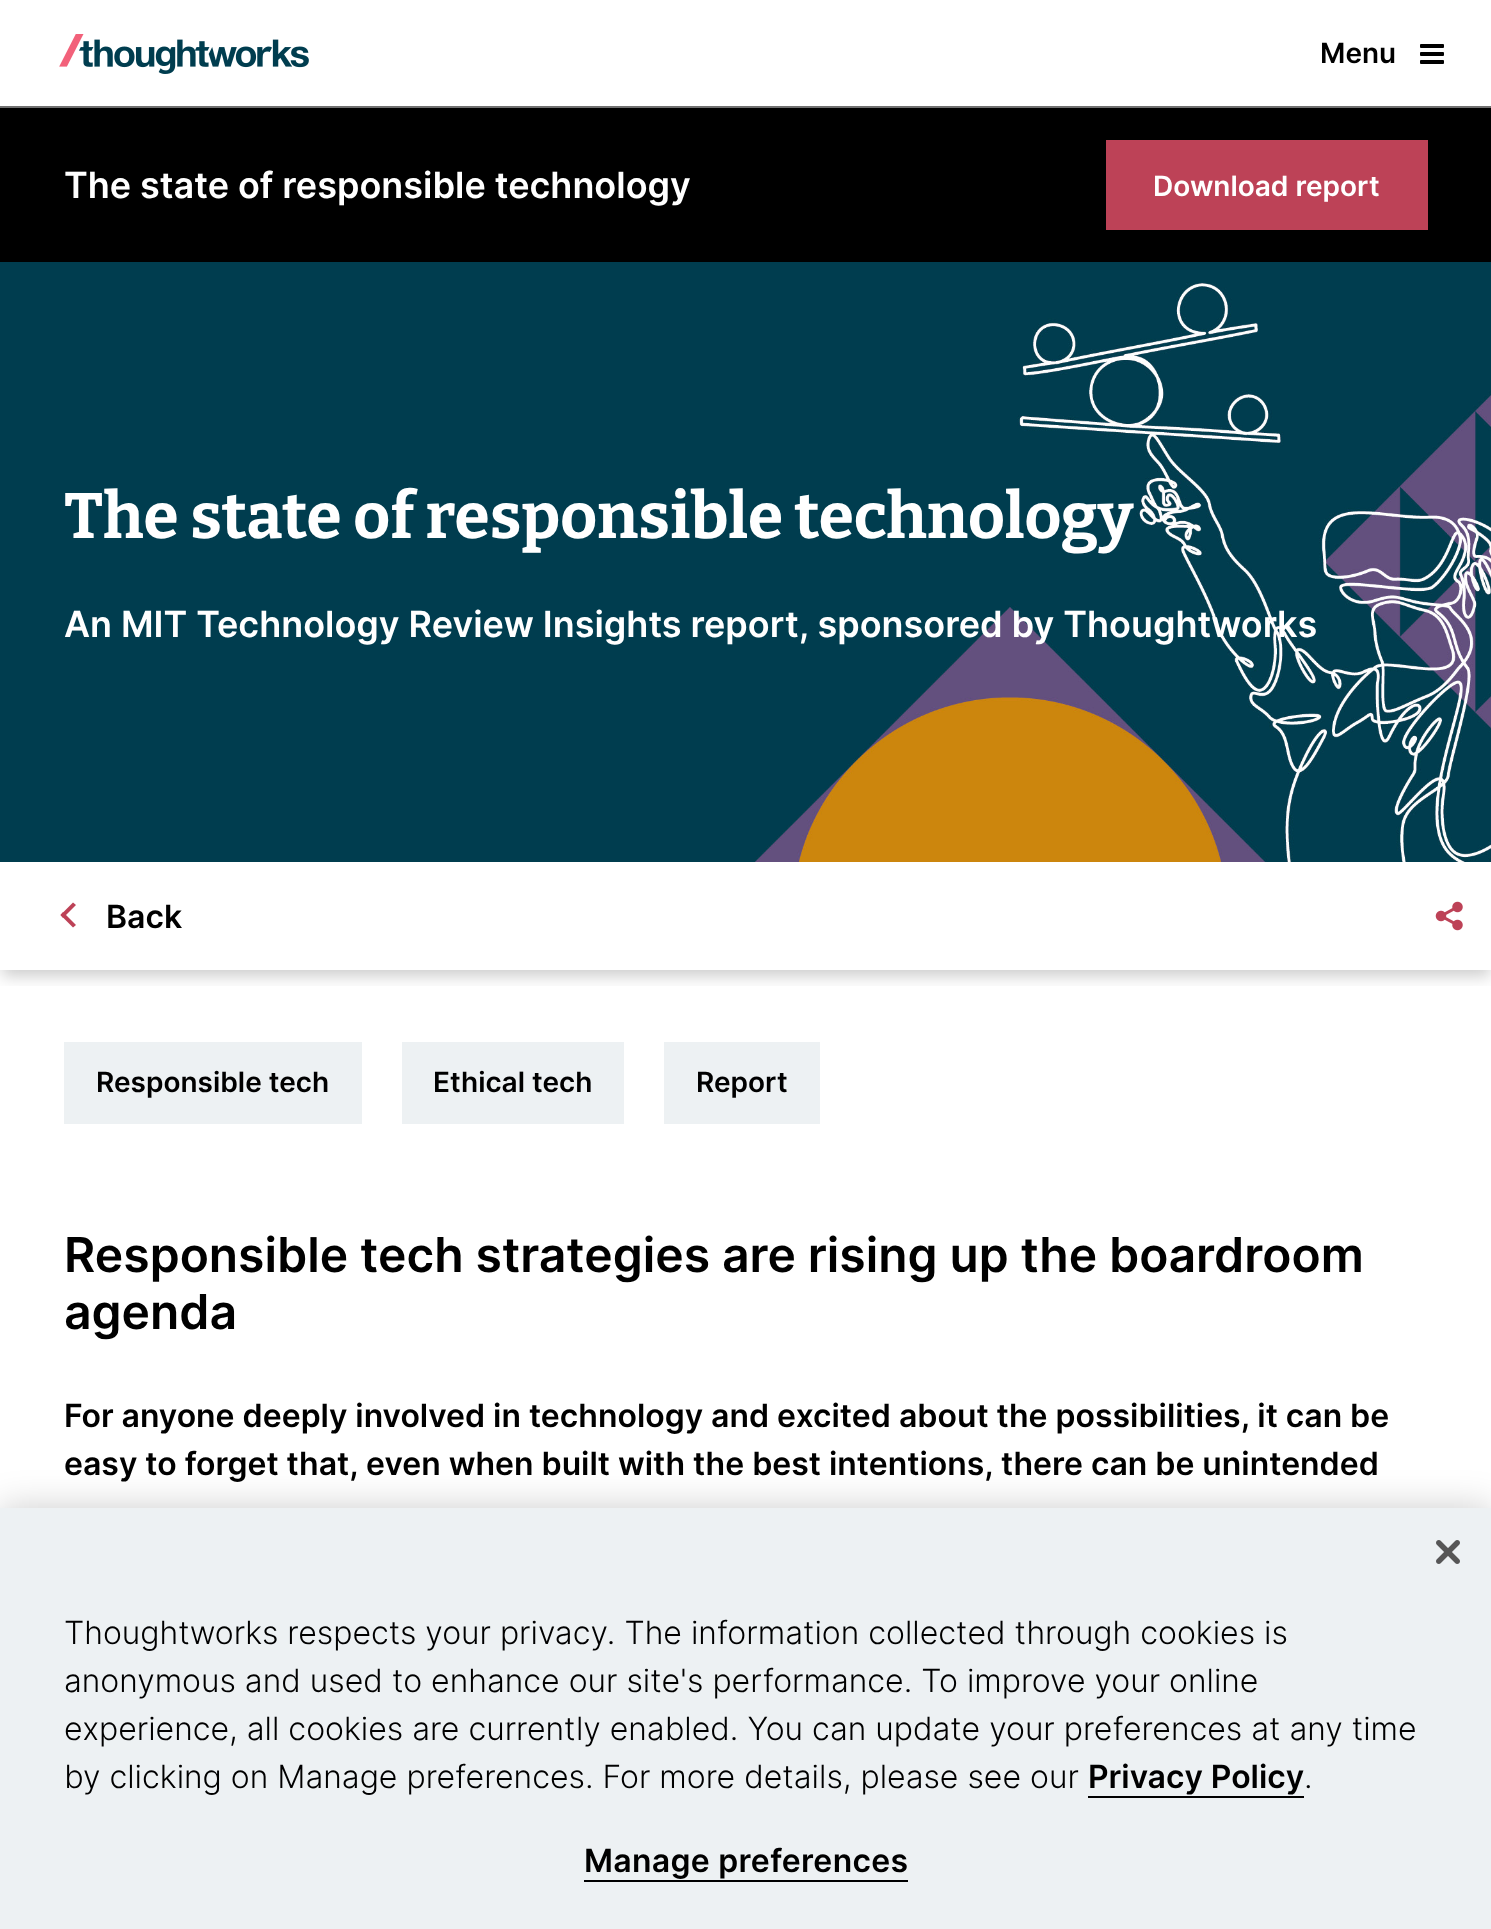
async function draw(canvas) {
	canvas.width = 1491;
	canvas.height = 1929;
	const c = canvas.getContext('2d');
	c.miterLimit = 4;
	c.fontKerning = 'normal';
	async function loadImage(src) {
		const img = new Image();
		img.src = src;
		await img.decode();
		return img;
	}

	c.fillStyle = '#fff';
	c.fillRect(0, 0, 1491, 1929);
	c.fillStyle = '#707070';
	c.fillRect(0, 106, 1491, 2);
	c.drawImage(await loadImage('img1.png'), 59, 34, 250, 40);
	c.font = '600 28px Inter';
	c.fillStyle = '#000';
	c.fillText('Menu', 1320, 63);
	c.drawImage(await loadImage('img2.png'), 1420, 44, 24, 20);
	c.fillRect(0, 108, 1491, 154);
	c.font = '600 36px Inter';
	c.fillStyle = '#fff';
	c.fillText('The state of responsible technology', 64, 198);
	c.fillStyle = '#bd4257';
	c.fillRect(1106, 140, 322, 90);
	c.font = '600 28px Inter';
	c.fillStyle = '#fff';
	c.fillText('Download report', 1153, 196);
	c.drawImage(await loadImage('img3.png'), 0, 262, 1491, 600);
	c.font = '100 64px Bitter';
	c.fillText('The state of responsible technology', 64, 538);
	c.font = '600 36px Inter';
	c.fillText('An MIT Technology Review Insights report, sponsored by Thoughtworks', 64, 637);
	c.save();
	c.beginPath();
	c.rect(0, 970, 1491, 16);
	c.clip();
	c.fillStyle = '#00000033';
	c.filter = 'blur(8px)';
	c.beginPath();
	c.rect(2, 872, 1488, 104);
	c.fill();
	c.filter = 'none';
	c.restore();
	c.fillStyle = '#bd4257';
	c.beginPath();
	c.moveTo(73, 927.5);
	c.lineTo(60.5, 915);
	c.lineTo(63, 912);
	c.lineTo(76, 925);
	c.closePath();
	c.fill();
	c.beginPath();
	c.moveTo(63, 918);
	c.lineTo(60.5, 915);
	c.lineTo(73, 902.5);
	c.lineTo(76, 905);
	c.closePath();
	c.fill();
	c.font = '600 32px Inter';
	c.fillStyle = '#000';
	c.fillText('Back', 106, 928);
	c.drawImage(await loadImage('img4.png'), 1435, 901, 28, 30);
	c.fillStyle = '#edf1f3';
	c.fillRect(64, 1042, 298, 82);
	c.font = '600 28px Inter';
	c.fillStyle = '#000';
	c.fillText('Responsible tech', 96, 1092);
	c.fillStyle = '#edf1f3';
	c.fillRect(402, 1042, 222, 82);
	c.fillStyle = '#000';
	c.fillText('Ethical tech', 433, 1092);
	c.fillStyle = '#edf1f3';
	c.fillRect(664, 1042, 156, 82);
	c.fillStyle = '#000';
	c.fillText('Report', 696, 1092);
	c.font = '600 48px Inter';
	c.fillText('Responsible tech strategies are rising up the boardroom', 64, 1272);
	c.fillText('agenda', 64, 1329);
	c.font = '600 32px Inter';
	c.fillText('For anyone deeply involved in technology and excited about the possibilities, it can be', 64, 1427);
	c.fillText('easy to forget that, even when built with the best intentions, there can be unintended', 64, 1475);
	c.fillStyle = '#00000033';
	c.filter = 'blur(18px)';
	c.beginPath();
	c.rect(0, 1508, 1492, 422);
	c.fill();
	c.filter = 'none';
	c.fillStyle = '#edf1f3';
	c.fillRect(0, 1508, 1491, 421);
	c.drawImage(await loadImage('img5.png'), 1436, 1540, 24, 24);
	c.font = '300 32px Inter';
	c.fillStyle = '#000';
	for (const [text, x, y] of [
		['Thoughtworks respects your privacy. The information collected through cookies is', 64, 1644],
		['anonymous and used to enhance our site\'s performance. To improve your online', 64, 1692],
		['experience, all cookies are currently enabled. You can update your preferences at any time', 64, 1740],
		['by clicking on Manage preferences. For more details, please see our', 64, 1788],
	]) {
		c.fillText(text, x, y);
	}
	c.font = '600 32px Inter';
	c.fillText('Privacy Policy', 1088, 1788);
	c.fillRect(1088, 1796, 216, 2);
	c.font = '300 32px Inter';
	c.fillText('.', 1304, 1788);
	c.letterSpacing = '0.3px';
	c.font = '600 32px Inter';
	c.fillText('Manage preferences', 584, 1872);
	c.fillRect(584, 1880, 324, 2);
}

draw(document.querySelector('canvas'));
